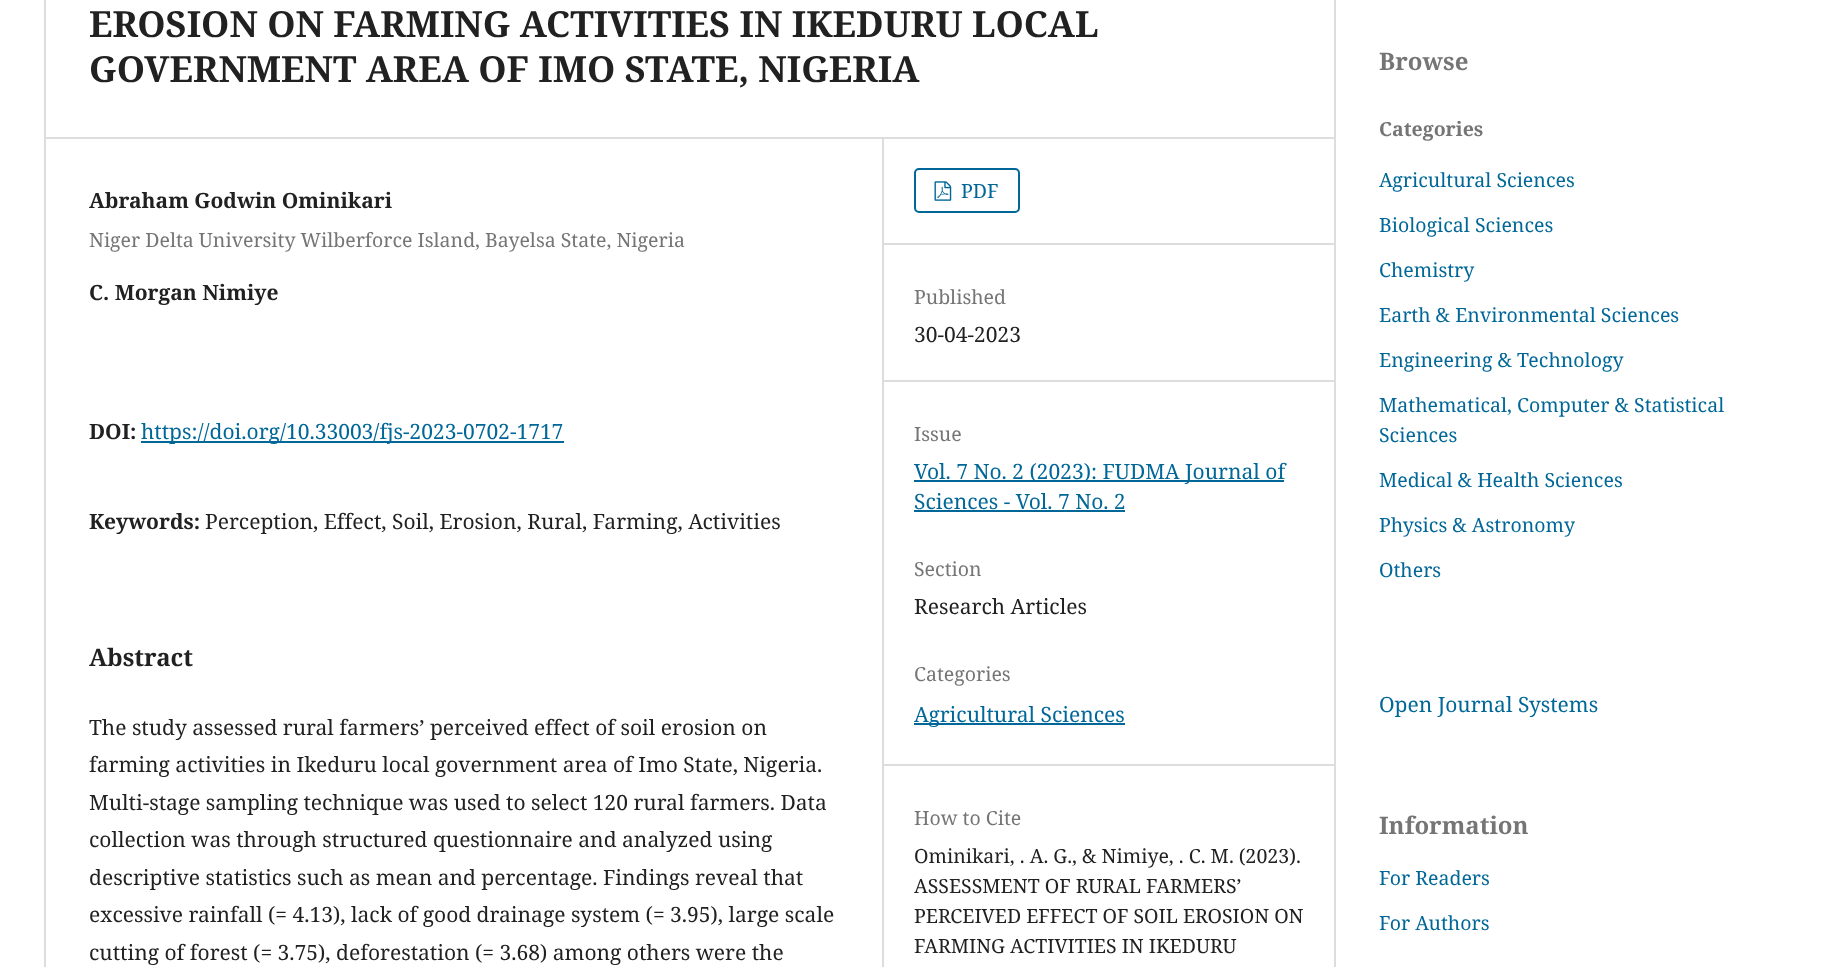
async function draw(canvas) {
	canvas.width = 1826;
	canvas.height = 967;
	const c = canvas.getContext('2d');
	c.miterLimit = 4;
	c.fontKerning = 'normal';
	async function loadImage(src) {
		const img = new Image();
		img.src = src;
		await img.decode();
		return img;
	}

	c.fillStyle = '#fff';
	c.fillRect(0, 0, 1826, 967);
	c.fillStyle = '#ddd';
	c.fillRect(44, 137, 1290, 2);
	c.fillRect(44, 0, 2, 967);
	c.font = 'bold 36px Noto Serif';
	c.fillStyle = '#212121';
	c.fillText('EROSION ON FARMING ACTIVITIES IN IKEDURU LOCAL', 89, 37);
	c.fillText('GOVERNMENT AREA OF IMO STATE, NIGERIA', 89, 82);
	c.fillStyle = '#ddd';
	c.fillRect(882, 138, 2, 829);
	c.font = 'bold 21px Noto Serif';
	c.fillStyle = '#212121';
	c.fillText('Abraham Godwin Ominikari', 89, 208);
	c.font = '19.5px Noto Serif';
	c.fillStyle = '#757575';
	c.fillText('Niger Delta University Wilberforce Island, Bayelsa State, Nigeria', 89, 247);
	c.font = 'bold 21px Noto Serif';
	c.fillStyle = '#212121';
	c.fillText('C. Morgan Nimiye', 89, 300);
	c.fillText('DOI:', 89, 439);
	c.fillStyle = '#006798';
	c.fillRect(141, 441, 423, 2);
	c.font = '21px Noto Serif';
	c.fillText('https://doi.org/10.33003/fjs-2023-0702-1717', 141, 439);
	c.font = 'bold 21px Noto Serif';
	c.fillStyle = '#212121';
	c.fillText('Keywords:', 89, 529);
	c.font = '21px Noto Serif';
	c.fillText('Perception, Effect, Soil, Erosion, Rural, Farming, Activities', 205, 529);
	c.font = 'bold 24px Noto Serif';
	c.fillText('Abstract', 89, 666);
	c.font = '21px Noto Serif';
	for (const [text, x, y] of [
		['The study assessed rural farmers’ perceived effect of soil erosion on', 89, 735],
		['farming activities in Ikeduru local government area of Imo State, Nigeria.', 89, 772],
		['Multi-stage sampling technique was used to select 120 rural farmers. Data', 89, 810],
		['collection was through structured questionnaire and analyzed using', 89, 847],
		['descriptive statistics such as mean and percentage. Findings reveal that', 89, 885],
		['excessive rainfall (= 4.13), lack of good drainage system (= 3.95), large scale', 89, 922],
		['cutting of forest (= 3.75), deforestation (= 3.68) among others were the', 89, 960],
	]) {
		c.fillText(text, x, y);
	}
	c.fillStyle = '#ddd';
	c.fillRect(884, 243, 450, 2);
	c.beginPath();
	c.roundRect(915, 169, 104, 43, 4);
	c.strokeStyle = '#006798';
	c.lineWidth = 2;
	c.stroke();
	c.drawImage(await loadImage('img1.png'), 934, 181, 18, 20);
	c.font = '19.5px Noto Serif';
	c.fillStyle = '#006798';
	c.fillText('PDF', 961, 198);
	c.fillStyle = '#ddd';
	c.fillRect(884, 380, 450, 2);
	c.fillStyle = '#757575';
	c.fillText('Published', 914, 304);
	c.font = '21px Noto Serif';
	c.fillStyle = '#212121';
	c.fillText('30-04-2023', 914, 342);
	c.fillStyle = '#ddd';
	c.fillRect(884, 764, 450, 2);
	c.font = '19.5px Noto Serif';
	c.fillStyle = '#757575';
	c.fillText('Issue', 914, 441);
	c.fillStyle = '#006798';
	c.fillRect(914, 480, 370, 2);
	c.font = '21px Noto Serif';
	c.fillText('Vol. 7 No. 2 (2023): FUDMA Journal of', 914, 479);
	c.fillText('Sciences - Vol. 7 No. 2', 914, 509);
	c.fillRect(914, 510, 211, 2);
	c.font = '19.5px Noto Serif';
	c.fillStyle = '#757575';
	c.fillText('Section', 914, 576);
	c.font = '21px Noto Serif';
	c.fillStyle = '#212121';
	c.fillText('Research Articles', 914, 614);
	c.font = '19.5px Noto Serif';
	c.fillStyle = '#757575';
	c.fillText('Categories', 914, 681);
	c.fillStyle = '#006798';
	c.fillRect(914, 723, 211, 2);
	c.font = '21px Noto Serif';
	c.fillText('Agricultural Sciences', 914, 722);
	c.font = '19.5px Noto Serif';
	c.fillStyle = '#757575';
	c.fillText('How to Cite', 914, 825);
	c.fillStyle = '#212121';
	for (const [text, x, y] of [
		['Ominikari, . A. G., & Nimiye, . C. M. (2023).', 914, 863],
		['ASSESSMENT OF RURAL FARMERS’', 914, 893],
		['PERCEIVED EFFECT OF SOIL EROSION ON', 914, 923],
		['FARMING ACTIVITIES IN IKEDURU', 914, 953],
	]) {
		c.fillText(text, x, y);
	}
	c.fillStyle = '#ddd';
	c.fillRect(1334, 0, 2, 967);
	c.font = 'bold 24px Noto Serif';
	c.fillStyle = '#757575';
	c.fillText('Browse', 1379, 70);
	c.font = 'bold 19.5px Noto Serif';
	c.fillText('Categories', 1379, 136);
	c.font = '19.5px Noto Serif';
	c.fillStyle = '#006798';
	for (const [text, x, y] of [
		['Agricultural Sciences', 1379, 187],
		['Biological Sciences', 1379, 232],
		['Chemistry', 1379, 277],
		['Earth & Environmental Sciences', 1379, 322],
		['Engineering & Technology', 1379, 367],
		['Mathematical, Computer & Statistical', 1379, 412],
		['Sciences', 1379, 442],
		['Medical & Health Sciences', 1379, 487],
		['Physics & Astronomy', 1379, 532],
		['Others', 1379, 577],
	]) {
		c.fillText(text, x, y);
	}
	c.font = '21px Noto Serif';
	c.fillText('Open Journal Systems', 1379, 712);
	c.font = 'bold 24px Noto Serif';
	c.fillStyle = '#757575';
	c.fillText('Information', 1379, 834);
	c.font = '19.5px Noto Serif';
	c.fillStyle = '#006798';
	c.fillText('For Readers', 1379, 885);
	c.fillText('For Authors', 1379, 930);
}

draw(document.querySelector('canvas'));
